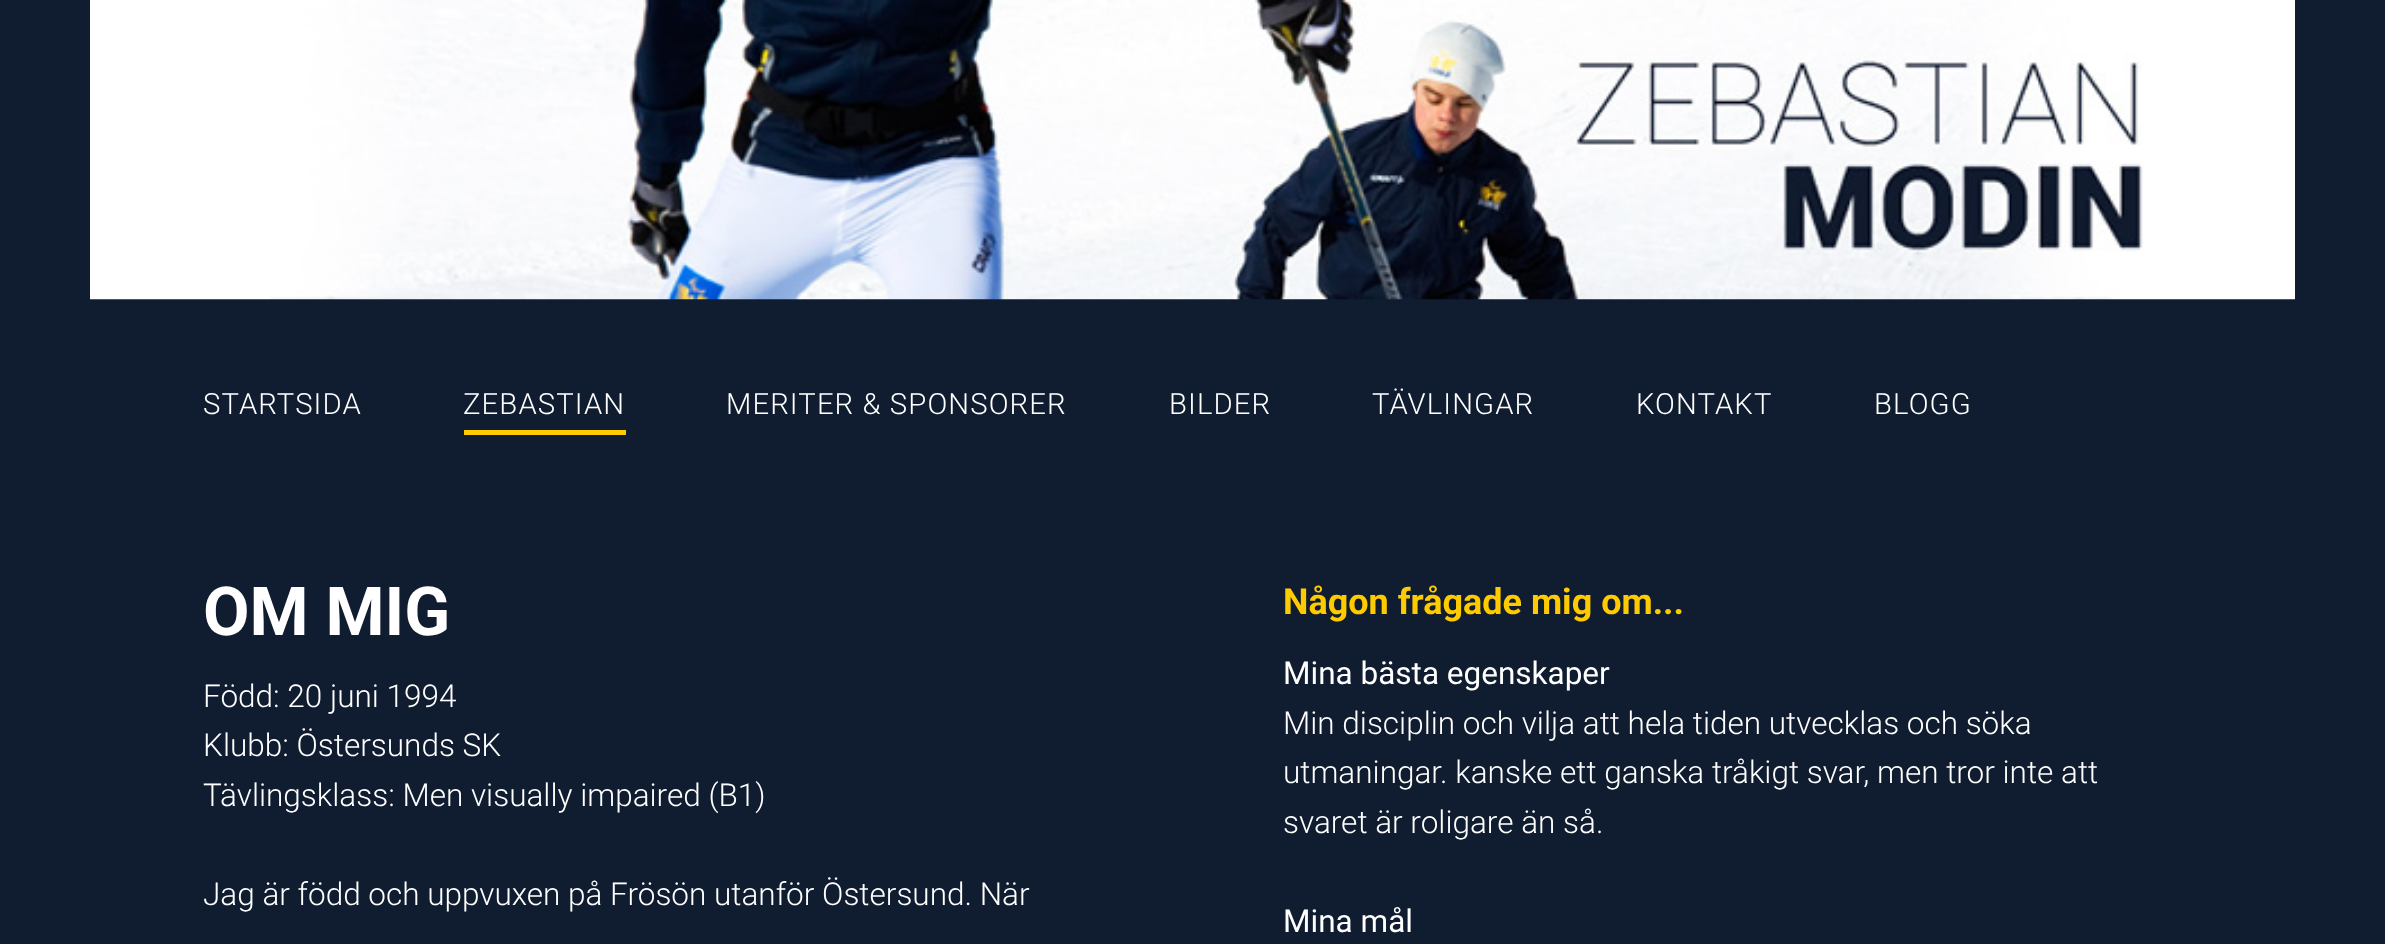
async function draw(canvas) {
	canvas.width = 2385;
	canvas.height = 944;
	const c = canvas.getContext('2d');
	c.miterLimit = 4;
	c.fontKerning = 'normal';
	async function loadImage(src) {
		const img = new Image();
		img.src = src;
		await img.decode();
		return img;
	}

	c.fillStyle = '#101c2f';
	c.fillRect(0, 0, 2385, 944);
	c.drawImage(await loadImage('img1.png'), 90, 0, 2205, 300);
	c.letterSpacing = '1.1px';
	c.font = '300 29.25px Roboto';
	c.fillStyle = '#fff';
	c.fillText('STARTSIDA', 203, 414);
	c.fillStyle = '#fecb00';
	c.fillRect(464, 430, 162, 5);
	c.fillStyle = '#fff';
	for (const [text, x, y] of [
		['ZEBASTIAN', 463, 414],
		['MERITER & SPONSORER', 726, 414],
		['BILDER', 1169, 414],
		['TÄVLINGAR', 1372, 414],
		['KONTAKT', 1636, 414],
		['BLOGG', 1874, 414],
	]) {
		c.fillText(text, x, y);
	}
	c.letterSpacing = '0px';
	c.font = 'bold 67.5px Roboto';
	c.fillText('OM MIG', 203, 635);
	c.font = '300 31.5px Roboto';
	for (const [text, x, y] of [
		['Född: 20 juni 1994', 203, 707],
		['Klubb: Östersunds SK', 203, 756],
		['Tävlingsklass: Men visually impaired (B1)', 203, 806],
		['Jag är född och uppvuxen på Frösön utanför Östersund. När', 203, 905],
	]) {
		c.fillText(text, x, y);
	}
	c.font = 'bold 36px Roboto';
	c.fillStyle = '#fecb00';
	c.fillText('Någon frågade mig om...', 1283, 614);
	c.font = '31.5px Roboto';
	c.fillStyle = '#fff';
	c.fillText('Mina bästa egenskaper', 1283, 684);
	c.font = '300 31.5px Roboto';
	for (const [text, x, y] of [
		['Min disciplin och vilja att hela tiden utvecklas och söka', 1283, 734],
		['utmaningar. kanske ett ganska tråkigt svar, men tror inte att', 1283, 783],
		['svaret är roligare än så.', 1283, 833],
	]) {
		c.fillText(text, x, y);
	}
	c.font = '31.5px Roboto';
	c.fillText('Mina mål', 1283, 932);
}

draw(document.querySelector('canvas'));
